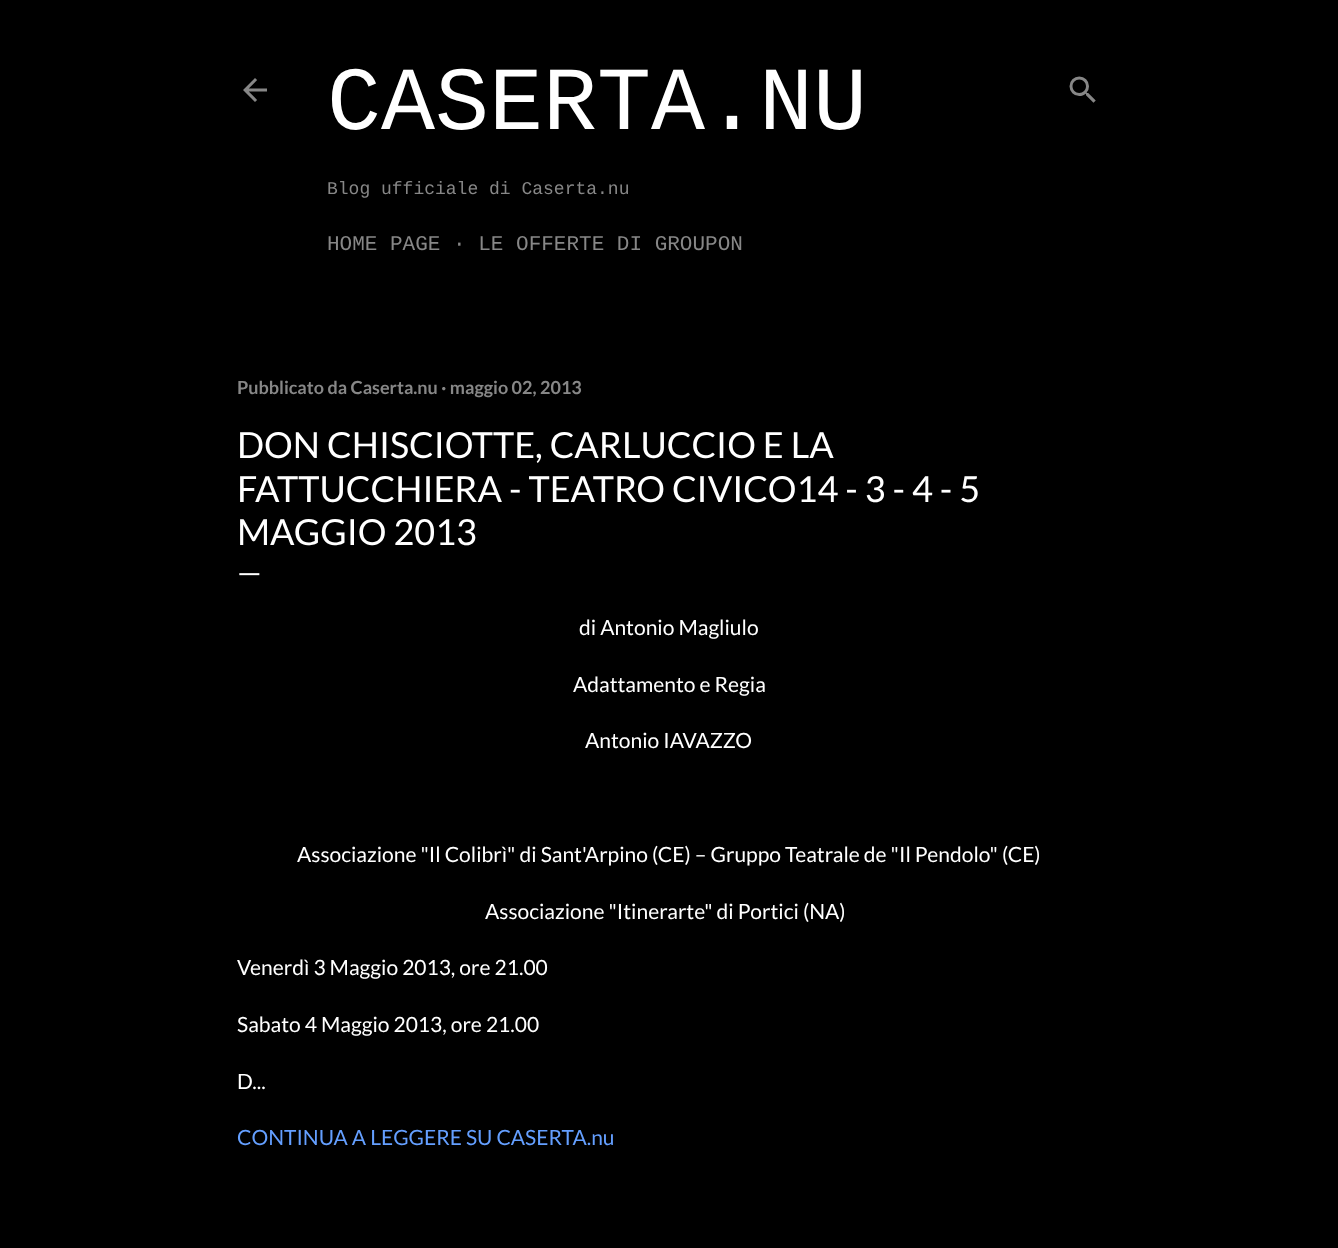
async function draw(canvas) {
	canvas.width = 1338;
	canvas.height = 1248;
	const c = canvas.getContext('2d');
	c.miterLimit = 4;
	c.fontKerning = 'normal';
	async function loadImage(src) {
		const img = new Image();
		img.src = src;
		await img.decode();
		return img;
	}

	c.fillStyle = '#000';
	c.fillRect(0, 0, 1338, 1248);
	c.drawImage(await loadImage('img1.png'), 243, 78, 24, 24);
	c.font = '90px Liberation Mono';
	c.fillStyle = '#fff';
	c.fillText('CASERTA.NU', 327, 129);
	c.font = '18px Liberation Mono';
	c.fillStyle = '#878787';
	c.fillText('Blog ufficiale di Caserta.nu', 327, 194);
	c.font = '21px Liberation Mono';
	c.fillText('HOME PAGE · LE OFFERTE DI GROUPON', 327, 250);
	c.drawImage(await loadImage('img2.png'), 1069, 76, 27, 27);
	c.font = 'bold 18px Lato';
	c.fillText('Pubblicato da Caserta.nu · maggio 02, 2013', 237, 394);
	c.font = '36px Lato';
	c.fillStyle = '#fff';
	for (const [text, x, y] of [
		['DON CHISCIOTTE, CARLUCCIO E LA', 237, 458],
		['FATTUCCHIERA - TEATRO CIVICO14 - 3 - 4 - 5', 237, 502],
		['MAGGIO 2013', 237, 545],
	]) {
		c.fillText(text, x, y);
	}
	c.font = '30px Lato';
	c.fillText('—', 237, 583);
	c.font = '21px Lato';
	for (const [text, x, y] of [
		['di Antonio Magliulo', 579, 635],
		['Adattamento e Regia', 573, 692],
		['Antonio IAVAZZO', 585, 748],
		['Associazione "Il Colibrì" di Sant\'Arpino (CE) – Gruppo Teatrale de "Il Pendolo" (CE)', 297, 862],
		['Associazione "Itinerarte" di Portici (NA)', 485, 919],
		['Venerdì 3 Maggio 2013, ore 21.00', 237, 975],
		['Sabato 4 Maggio 2013, ore 21.00', 237, 1032],
		['D...', 237, 1089],
	]) {
		c.fillText(text, x, y);
	}
	c.fillStyle = '#649fff';
	c.fillText('CONTINUA A LEGGERE SU CASERTA.nu', 237, 1145);
}

draw(document.querySelector('canvas'));
